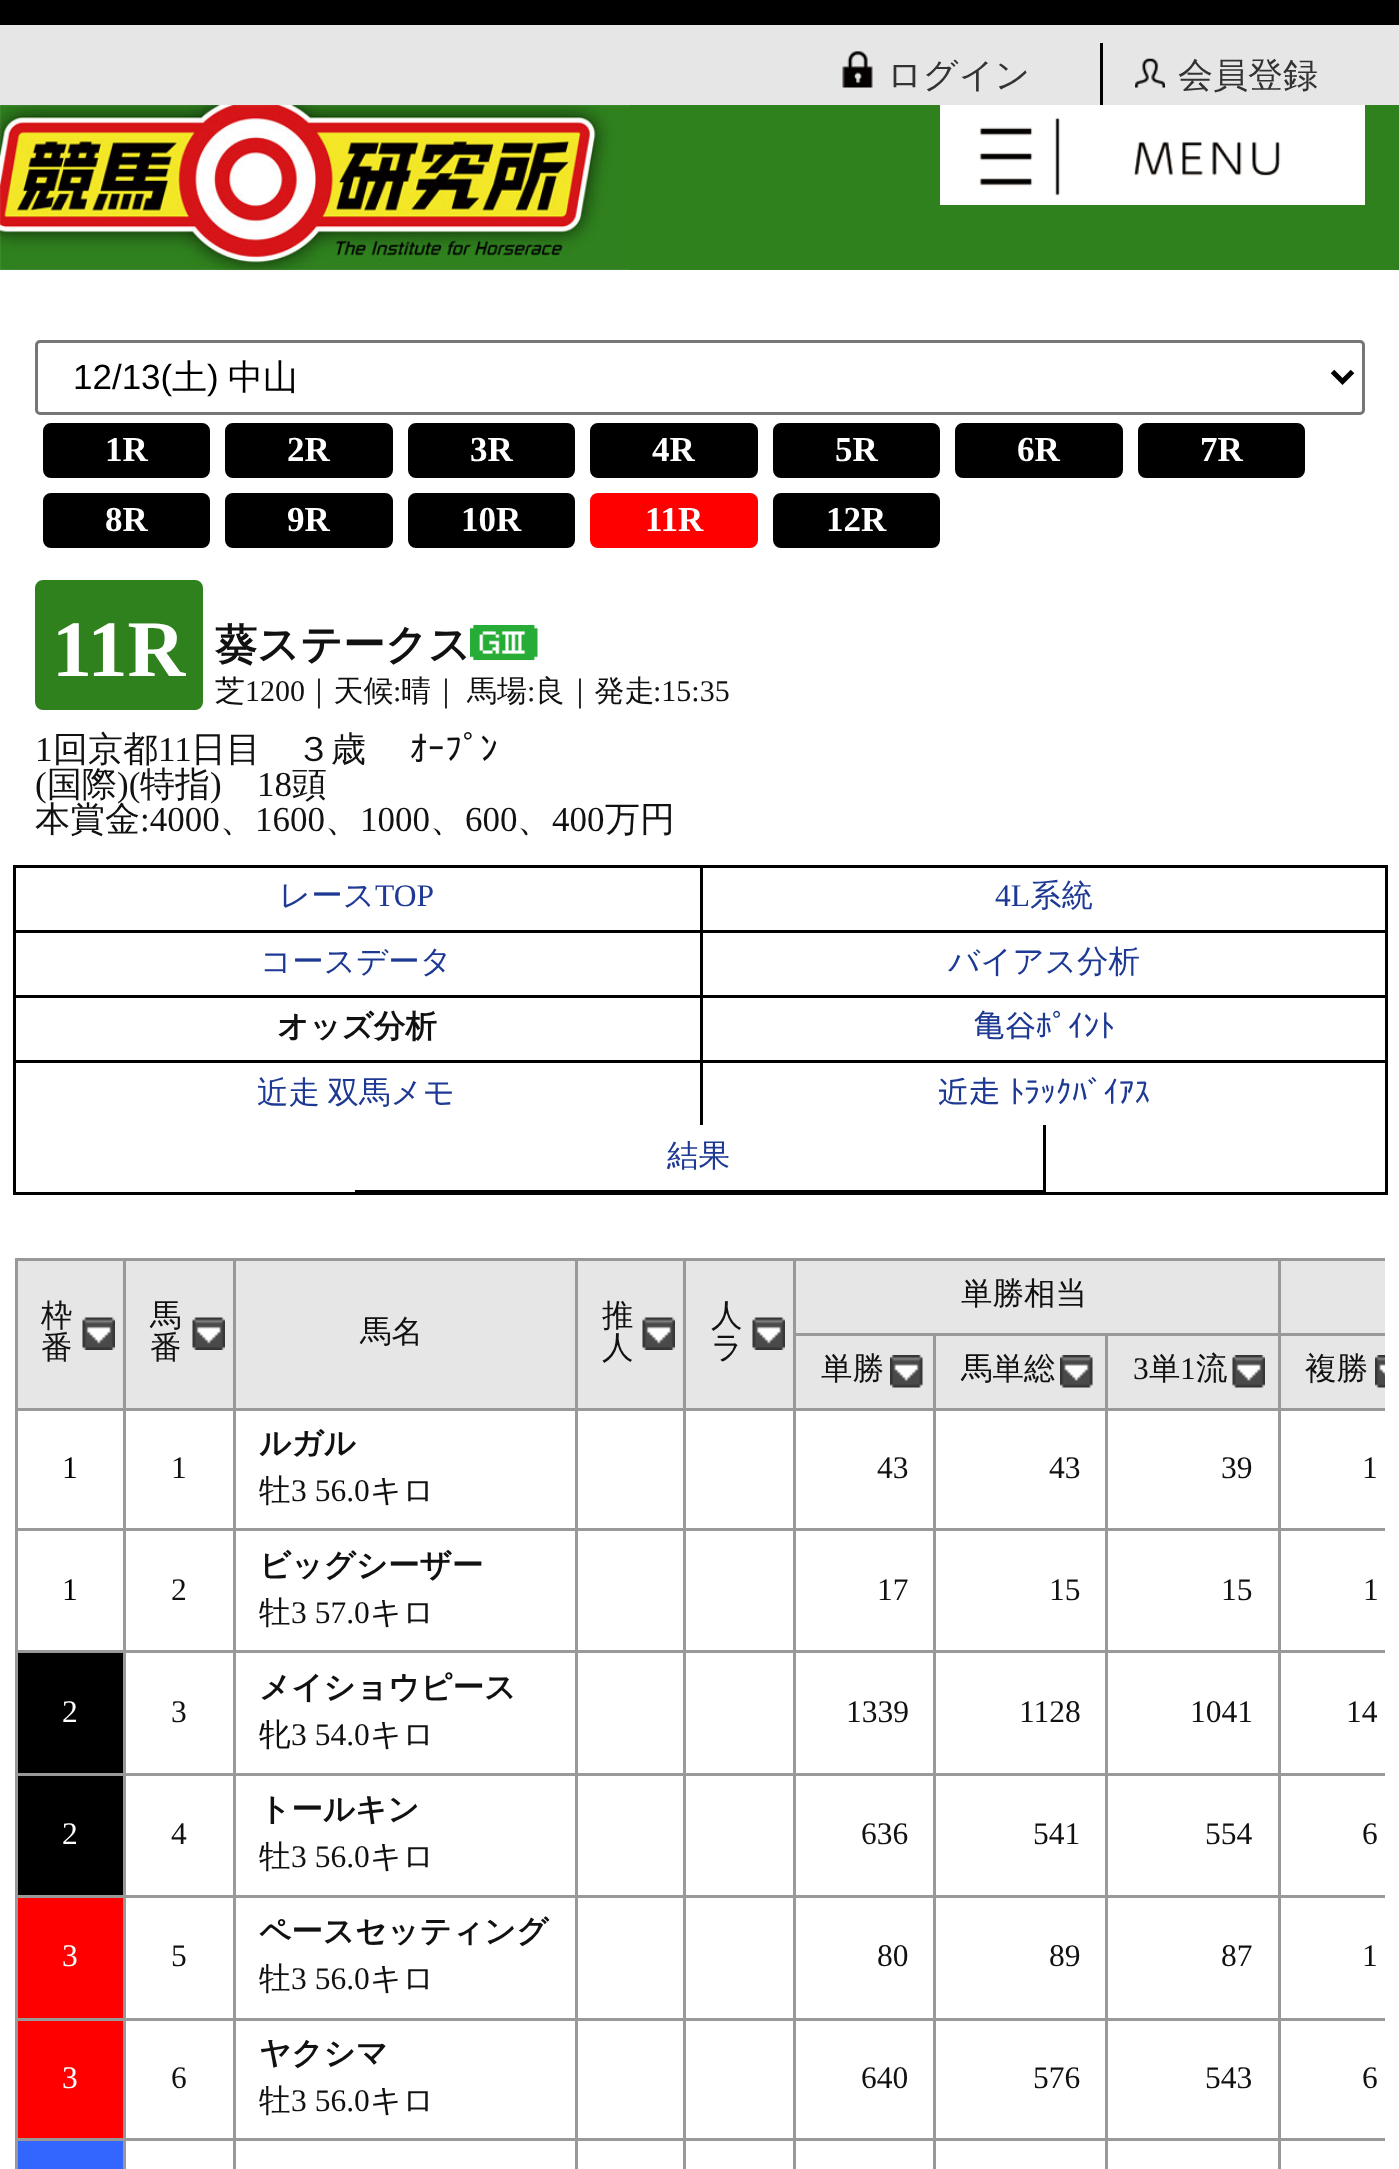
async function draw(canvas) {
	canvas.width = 1399;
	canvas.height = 2169;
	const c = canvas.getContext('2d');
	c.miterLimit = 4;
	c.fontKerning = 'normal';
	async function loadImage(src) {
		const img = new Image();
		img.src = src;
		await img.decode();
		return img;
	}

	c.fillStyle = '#fff';
	c.fillRect(0, 0, 1399, 2169);
	c.fillStyle = '#e6e6e6';
	c.fillRect(0, 25, 1399, 80);
	c.fillStyle = '#000';
	c.fillRect(0, 0, 1399, 25);
	c.drawImage(await loadImage('img1.png'), 842, 51, 31, 37);
	c.font = '500 35px WenQuanYi Zen Hei';
	c.fillStyle = '#333';
	c.fillText('ログイン', 887, 87);
	c.fillStyle = '#000';
	c.fillRect(1100, 43, 3, 62);
	c.drawImage(await loadImage('img2.png'), 1135, 58, 30, 30);
	c.fillStyle = '#333';
	c.fillText('会員登録', 1178, 87);
	c.fillStyle = '#2f811e';
	c.fillRect(630, 105, 769, 165);
	c.drawImage(await loadImage('img3.png'), 0, 105, 630, 165);
	c.fillStyle = '#fff';
	c.fillRect(940, 105, 425, 100);
	c.drawImage(await loadImage('img4.png'), 979, 117, 302, 79);
	c.beginPath();
	c.roundRect(36.5, 341.5, 1327, 72, 3.5);
	c.strokeStyle = '#767676';
	c.lineWidth = 3;
	c.stroke();
	c.beginPath();
	c.moveTo(1332.5, 371.5);
	c.lineTo(1342.5, 381.5);
	c.lineTo(1352.5, 371.5);
	c.strokeStyle = '#000';
	c.lineWidth = 5;
	c.stroke();
	c.font = '35px Liberation Sans';
	c.fillStyle = '#000';
	c.fillText('12/13(', 73, 389);
	c.font = '500 35px WenQuanYi Zen Hei';
	c.fillText('土', 172, 389);
	c.font = '35px Liberation Sans';
	c.fillText(')', 207, 389);
	c.font = '500 35px WenQuanYi Zen Hei';
	c.fillText('中山', 228, 389);
	c.beginPath();
	c.roundRect(44.5, 424.5, 164, 52, 6.5);
	c.fill();
	c.lineWidth = 3;
	c.stroke();
	c.font = 'bold 35px Liberation Serif';
	c.fillStyle = '#fff';
	c.fillText('1R', 105, 461);
	c.fillStyle = '#000';
	c.beginPath();
	c.roundRect(226.5, 424.5, 165, 52, 6.5);
	c.fill();
	c.stroke();
	c.fillStyle = '#fff';
	c.fillText('2R', 287, 461);
	c.fillStyle = '#000';
	c.beginPath();
	c.roundRect(409.5, 424.5, 164, 52, 6.5);
	c.fill();
	c.stroke();
	c.fillStyle = '#fff';
	c.fillText('3R', 470, 461);
	c.fillStyle = '#000';
	c.beginPath();
	c.roundRect(591.5, 424.5, 165, 52, 6.5);
	c.fill();
	c.stroke();
	c.fillStyle = '#fff';
	c.fillText('4R', 652, 461);
	c.fillStyle = '#000';
	c.beginPath();
	c.roundRect(774.5, 424.5, 164, 52, 6.5);
	c.fill();
	c.stroke();
	c.fillStyle = '#fff';
	c.fillText('5R', 835, 461);
	c.fillStyle = '#000';
	c.beginPath();
	c.roundRect(956.5, 424.5, 165, 52, 6.5);
	c.fill();
	c.stroke();
	c.fillStyle = '#fff';
	c.fillText('6R', 1017, 461);
	c.fillStyle = '#000';
	c.beginPath();
	c.roundRect(1139.5, 424.5, 164, 52, 6.5);
	c.fill();
	c.stroke();
	c.fillStyle = '#fff';
	c.fillText('7R', 1200, 461);
	c.fillStyle = '#000';
	c.beginPath();
	c.roundRect(44.5, 494.5, 164, 52, 6.5);
	c.fill();
	c.stroke();
	c.fillStyle = '#fff';
	c.fillText('8R', 105, 531);
	c.fillStyle = '#000';
	c.beginPath();
	c.roundRect(226.5, 494.5, 165, 52, 6.5);
	c.fill();
	c.stroke();
	c.fillStyle = '#fff';
	c.fillText('9R', 287, 531);
	c.fillStyle = '#000';
	c.beginPath();
	c.roundRect(409.5, 494.5, 164, 52, 6.5);
	c.fill();
	c.stroke();
	c.fillStyle = '#fff';
	c.fillText('10R', 461, 531);
	c.fillStyle = '#f00';
	c.beginPath();
	c.roundRect(591.5, 494.5, 165, 52, 6.5);
	c.fill();
	c.strokeStyle = '#f00';
	c.stroke();
	c.fillStyle = '#fff';
	c.fillText('11R', 645, 531);
	c.fillStyle = '#000';
	c.beginPath();
	c.roundRect(774.5, 494.5, 164, 52, 6.5);
	c.fill();
	c.strokeStyle = '#000';
	c.stroke();
	c.fillStyle = '#fff';
	c.fillText('12R', 826, 531);
	c.fillStyle = '#2f811e';
	c.beginPath();
	c.roundRect(36.5, 581.5, 165, 127, 6.5);
	c.fill();
	c.strokeStyle = '#2f811e';
	c.stroke();
	c.font = 'bold 80px Liberation Serif';
	c.fillStyle = '#fff';
	c.fillText('11R', 52, 676);
	c.font = 'bold 42px WenQuanYi Zen Hei';
	c.fillStyle = '#111';
	c.fillText('葵ステークス', 215, 659);
	c.drawImage(await loadImage('img5.png'), 470, 625, 68, 35);
	c.font = '500 30px WenQuanYi Zen Hei';
	c.fillText('芝', 215, 701);
	c.font = '30px Liberation Serif';
	c.fillText('1200', 245, 701);
	c.font = '500 30px WenQuanYi Zen Hei';
	c.fillText('｜天候', 304, 701);
	c.font = '30px Liberation Serif';
	c.fillText(':', 393, 701);
	c.font = '500 30px WenQuanYi Zen Hei';
	c.fillText('晴｜', 401, 701);
	c.fillText('馬場', 467, 701);
	c.font = '30px Liberation Serif';
	c.fillText(':', 527, 701);
	c.font = '500 30px WenQuanYi Zen Hei';
	c.fillText('良｜発走', 535, 701);
	c.font = '30px Liberation Serif';
	c.fillText(':15:35', 653, 701);
	c.font = '35px Liberation Serif';
	c.fillText('1', 35, 761);
	c.font = '500 35px WenQuanYi Zen Hei';
	c.fillText('回京都', 53, 761);
	c.font = '35px Liberation Serif';
	c.fillText('11', 158, 761);
	c.font = '500 35px WenQuanYi Zen Hei';
	c.fillText('日目　３歳', 191, 761);
	c.font = '35px IPAPGothic';
	c.fillText('ｵｰﾌﾟﾝ', 410, 761);
	c.font = '35px Liberation Serif';
	c.fillText('(', 35, 796);
	c.font = '500 35px WenQuanYi Zen Hei';
	c.fillText('国際', 47, 796);
	c.font = '35px Liberation Serif';
	c.fillText(')(', 117, 796);
	c.font = '500 35px WenQuanYi Zen Hei';
	c.fillText('特指', 140, 796);
	c.font = '35px Liberation Serif';
	c.fillText(')', 210, 796);
	c.fillText('18', 257, 796);
	c.font = '500 35px WenQuanYi Zen Hei';
	c.fillText('頭', 292, 796);
	c.fillText('本賞金', 35, 831);
	c.font = '35px Liberation Serif';
	c.fillText(':4000', 140, 831);
	c.font = '500 35px WenQuanYi Zen Hei';
	c.fillText('、', 220, 831);
	c.font = '35px Liberation Serif';
	c.fillText('1600', 255, 831);
	c.font = '500 35px WenQuanYi Zen Hei';
	c.fillText('、', 325, 831);
	c.font = '35px Liberation Serif';
	c.fillText('1000', 360, 831);
	c.font = '500 35px WenQuanYi Zen Hei';
	c.fillText('、', 430, 831);
	c.font = '35px Liberation Serif';
	c.fillText('600', 465, 831);
	c.font = '500 35px WenQuanYi Zen Hei';
	c.fillText('、', 517, 831);
	c.font = '35px Liberation Serif';
	c.fillText('400', 552, 831);
	c.font = '500 35px WenQuanYi Zen Hei';
	c.fillText('万円', 605, 831);
	c.strokeStyle = '#000';
	c.strokeRect(14.5, 866.5, 1372, 327);
	c.fillStyle = '#000';
	c.fillRect(700, 868, 3, 257);
	c.fillRect(13, 930, 1375, 3);
	c.font = '500 31.5px WenQuanYi Zen Hei';
	c.fillStyle = '#1d3994';
	c.fillText('レース', 279, 906);
	c.font = '31.5px Liberation Serif';
	c.fillText('TOP', 375, 906);
	c.fillText('4L', 995, 906);
	c.font = '500 31.5px WenQuanYi Zen Hei';
	c.fillText('系統', 1030, 906);
	c.fillStyle = '#000';
	c.fillRect(13, 995, 1375, 3);
	c.fillStyle = '#1d3994';
	c.fillText('コースデータ', 260, 972);
	c.fillText('バイアス分析', 948, 972);
	c.fillStyle = '#000';
	c.fillRect(13, 1060, 1375, 3);
	c.font = 'bold 31.5px WenQuanYi Zen Hei';
	c.fillStyle = '#111';
	c.fillText('オッズ分析', 277, 1037);
	c.font = '31.5px IPAPGothic';
	c.fillStyle = '#1d3994';
	c.fillText('亀谷ﾎﾟｲﾝﾄ', 973, 1037);
	c.wordSpacing = '-2px';
	c.font = '500 31.5px WenQuanYi Zen Hei';
	c.fillText('近走 双馬メモ', 257, 1103);
	c.wordSpacing = '0px';
	c.font = '31.5px IPAPGothic';
	c.fillText('近走 ﾄﾗｯｸﾊﾞｲｱｽ', 937, 1103);
	c.fillStyle = '#000';
	c.fillRect(1043, 1125, 3, 68);
	c.fillRect(355, 1190, 690, 2);
	c.font = '500 31.5px WenQuanYi Zen Hei';
	c.fillStyle = '#1d3994';
	c.fillText('結果', 667, 1166);
	for (const [x, y, w, h, color] of [
		[796, 1261, 482, 72, '#e6e6e6'],
		[1278, 1258, 107, 3, '#999'],
		[1278, 1333, 107, 3, '#999'],
		[1278, 1408, 107, 3, '#999'],
		[1278, 1528, 107, 3, '#999'],
		[1278, 1650, 107, 3, '#999'],
		[1278, 1773, 107, 3, '#999'],
		[1278, 1895, 107, 3, '#999'],
		[1278, 2018, 107, 3, '#999'],
		[1278, 2138, 107, 3, '#999'],
		[1278, 2138, 3, 31, '#999'],
		[1105, 2138, 175, 3, '#999'],
		[1278, 2018, 3, 122, '#999'],
		[1105, 2018, 175, 3, '#999'],
		[1278, 1895, 3, 125, '#999'],
		[1105, 1895, 175, 3, '#999'],
		[1278, 1773, 3, 125, '#999'],
		[1105, 1773, 175, 3, '#999'],
		[1278, 1650, 3, 125, '#999'],
		[1105, 1650, 175, 3, '#999'],
		[1278, 1528, 3, 125, '#999'],
		[1105, 1528, 175, 3, '#999'],
		[1278, 1408, 3, 122, '#999'],
		[1105, 1408, 175, 3, '#999'],
		[1278, 1333, 3, 77, '#999'],
		[1105, 1333, 175, 3, '#999'],
		[1278, 1258, 3, 77, '#999'],
		[793, 1258, 487, 3, '#999'],
		[1105, 2138, 3, 31, '#999'],
		[933, 2138, 175, 3, '#999'],
		[1105, 2018, 3, 122, '#999'],
		[933, 2018, 175, 3, '#999'],
		[1105, 1895, 3, 125, '#999'],
		[933, 1895, 175, 3, '#999'],
		[1105, 1773, 3, 125, '#999'],
		[933, 1773, 175, 3, '#999'],
		[1105, 1650, 3, 125, '#999'],
		[933, 1650, 175, 3, '#999'],
		[1105, 1528, 3, 125, '#999'],
		[933, 1528, 175, 3, '#999'],
		[1105, 1408, 3, 122, '#999'],
		[933, 1408, 175, 3, '#999'],
		[1105, 1333, 3, 77, '#999'],
		[933, 1333, 175, 3, '#999'],
		[933, 2138, 3, 31, '#999'],
		[793, 2138, 142, 3, '#999'],
		[933, 2018, 3, 122, '#999'],
		[793, 2018, 142, 3, '#999'],
		[933, 1895, 3, 125, '#999'],
		[793, 1895, 142, 3, '#999'],
		[933, 1773, 3, 125, '#999'],
		[793, 1773, 142, 3, '#999'],
		[933, 1650, 3, 125, '#999'],
		[793, 1650, 142, 3, '#999'],
		[933, 1528, 3, 125, '#999'],
		[793, 1528, 142, 3, '#999'],
		[933, 1408, 3, 122, '#999'],
		[793, 1408, 142, 3, '#999'],
		[933, 1333, 3, 77, '#999'],
		[793, 1333, 142, 3, '#999'],
		[793, 2138, 3, 31, '#999'],
		[683, 2138, 112, 3, '#999'],
		[793, 2018, 3, 122, '#999'],
		[683, 2018, 112, 3, '#999'],
		[793, 1895, 3, 125, '#999'],
		[683, 1895, 112, 3, '#999'],
		[793, 1773, 3, 125, '#999'],
		[683, 1773, 112, 3, '#999'],
		[793, 1650, 3, 125, '#999'],
		[683, 1650, 112, 3, '#999'],
		[793, 1528, 3, 125, '#999'],
		[683, 1528, 112, 3, '#999'],
		[793, 1408, 3, 122, '#999'],
		[683, 1408, 112, 3, '#999'],
		[793, 1333, 3, 77, '#999'],
		[793, 1258, 3, 77, '#999'],
	]) {
		c.fillStyle = color;
		c.fillRect(x, y, w, h);
	}
	c.fillStyle = '#111';
	c.fillText('単勝相当', 961, 1304);
	c.fillStyle = '#e6e6e6';
	c.fillRect(1281, 1261, 104, 72);
	c.fillRect(18, 1261, 105, 147);
	c.drawImage(await loadImage('img6.png'), 82, 1317, 33, 33);
	for (const [x, y, w, h, color] of [
		[683, 1258, 112, 3, '#999'],
		[683, 2138, 3, 31, '#999'],
		[575, 2138, 110, 3, '#999'],
		[683, 2018, 3, 122, '#999'],
		[575, 2018, 110, 3, '#999'],
		[683, 1895, 3, 125, '#999'],
		[575, 1895, 110, 3, '#999'],
		[683, 1773, 3, 125, '#999'],
		[575, 1773, 110, 3, '#999'],
		[683, 1650, 3, 125, '#999'],
		[575, 1650, 110, 3, '#999'],
		[683, 1528, 3, 125, '#999'],
		[575, 1528, 110, 3, '#999'],
		[683, 1408, 3, 122, '#999'],
		[575, 1408, 110, 3, '#999'],
		[683, 1258, 3, 152, '#999'],
		[575, 1258, 110, 3, '#999'],
		[575, 2138, 3, 31, '#999'],
		[233, 2138, 345, 3, '#999'],
		[575, 2018, 3, 122, '#999'],
		[233, 2018, 345, 3, '#999'],
		[575, 1895, 3, 125, '#999'],
		[233, 1895, 345, 3, '#999'],
		[575, 1773, 3, 125, '#999'],
		[233, 1773, 345, 3, '#999'],
		[575, 1650, 3, 125, '#999'],
		[233, 1650, 345, 3, '#999'],
		[575, 1528, 3, 125, '#999'],
		[233, 1528, 345, 3, '#999'],
		[575, 1408, 3, 122, '#999'],
		[233, 1408, 345, 3, '#999'],
		[575, 1258, 3, 152, '#999'],
		[233, 1258, 345, 3, '#999'],
		[233, 2138, 3, 31, '#999'],
		[123, 2138, 112, 3, '#999'],
		[233, 2018, 3, 122, '#999'],
		[123, 2018, 112, 3, '#999'],
		[233, 1895, 3, 125, '#999'],
		[123, 1895, 112, 3, '#999'],
		[233, 1773, 3, 125, '#999'],
		[123, 1773, 112, 3, '#999'],
		[233, 1650, 3, 125, '#999'],
		[123, 1650, 112, 3, '#999'],
		[233, 1528, 3, 125, '#999'],
		[123, 1528, 112, 3, '#999'],
		[233, 1408, 3, 122, '#999'],
		[123, 1408, 112, 3, '#999'],
		[233, 1258, 3, 152, '#999'],
		[123, 1258, 112, 3, '#999'],
		[123, 2138, 3, 31, '#999'],
		[15, 2138, 110, 3, '#999'],
		[123, 2018, 3, 122, '#999'],
		[15, 2018, 110, 3, '#999'],
		[123, 1895, 3, 125, '#999'],
		[15, 1895, 110, 3, '#999'],
		[123, 1773, 3, 125, '#999'],
		[15, 1773, 110, 3, '#999'],
		[123, 1650, 3, 125, '#999'],
		[15, 1650, 110, 3, '#999'],
		[123, 1528, 3, 125, '#999'],
		[15, 1528, 110, 3, '#999'],
		[123, 1408, 3, 122, '#999'],
		[15, 1408, 110, 3, '#999'],
		[123, 1258, 3, 152, '#999'],
		[15, 1258, 110, 3, '#999'],
		[15, 2138, 3, 31, '#999'],
		[15, 2018, 3, 122, '#999'],
		[15, 1895, 3, 125, '#999'],
		[15, 1773, 3, 125, '#999'],
		[15, 1650, 3, 125, '#999'],
		[15, 1528, 3, 125, '#999'],
		[15, 1408, 3, 122, '#999'],
		[15, 1258, 3, 152, '#999'],
	]) {
		c.fillStyle = color;
		c.fillRect(x, y, w, h);
	}
	c.fillStyle = '#111';
	c.fillText('枠', 41, 1326);
	c.fillText('番', 41, 1358);
	c.fillStyle = '#e6e6e6';
	c.fillRect(126, 1261, 107, 147);
	c.drawImage(await loadImage('img6.png'), 192, 1317, 33, 33);
	c.fillStyle = '#111';
	c.fillText('馬', 150, 1326);
	c.fillText('番', 150, 1358);
	c.fillStyle = '#e6e6e6';
	c.fillRect(236, 1261, 339, 147);
	c.fillStyle = '#111';
	c.fillText('馬名', 360, 1342);
	c.fillStyle = '#e6e6e6';
	c.fillRect(578, 1261, 105, 147);
	c.drawImage(await loadImage('img6.png'), 642, 1317, 33, 33);
	c.fillStyle = '#111';
	c.fillText('推', 602, 1326);
	c.fillText('人', 602, 1358);
	c.fillStyle = '#e6e6e6';
	c.fillRect(686, 1261, 107, 147);
	c.drawImage(await loadImage('img6.png'), 752, 1317, 33, 33);
	c.fillStyle = '#111';
	c.fillText('人', 711, 1326);
	c.fillText('ラ', 711, 1358);
	c.fillStyle = '#e6e6e6';
	c.fillRect(796, 1336, 137, 72);
	c.drawImage(await loadImage('img7.png'), 890, 1355, 33, 33);
	c.fillStyle = '#111';
	c.fillText('単勝', 821, 1379);
	c.fillStyle = '#e6e6e6';
	c.fillRect(936, 1336, 169, 72);
	c.drawImage(await loadImage('img7.png'), 1060, 1355, 33, 33);
	c.fillStyle = '#111';
	c.fillText('馬単総', 961, 1379);
	c.fillStyle = '#e6e6e6';
	c.fillRect(1108, 1336, 170, 72);
	c.drawImage(await loadImage('img8.png'), 1232, 1355, 33, 33);
	c.font = '31.5px Liberation Serif';
	c.fillStyle = '#111';
	c.fillText('3', 1133, 1379);
	c.font = '500 31.5px WenQuanYi Zen Hei';
	c.fillText('単', 1149, 1379);
	c.font = '31.5px Liberation Serif';
	c.fillText('1', 1180, 1379);
	c.font = '500 31.5px WenQuanYi Zen Hei';
	c.fillText('流', 1196, 1379);
	c.fillStyle = '#e6e6e6';
	c.fillRect(1281, 1336, 104, 72);
	c.drawImage(await loadImage('img9.png'), 1375, 1355, 10, 33);
	c.fillStyle = '#111';
	c.fillText('複勝', 1305, 1379);
	c.font = '31.5px Liberation Serif';
	c.fillStyle = '#000';
	c.fillText('1', 62, 1478);
	c.fillStyle = '#111';
	c.fillText('1', 171, 1478);
	c.font = 'bold 31.5px WenQuanYi Zen Hei';
	c.fillText('ルガル', 259, 1454);
	c.font = '500 31.5px WenQuanYi Zen Hei';
	c.fillText('牡', 259, 1501);
	c.font = '31.5px Liberation Serif';
	c.fillText('3 56.0', 291, 1501);
	c.font = '500 31.5px WenQuanYi Zen Hei';
	c.fillText('キロ', 370, 1501);
	c.font = '31.5px Liberation Serif';
	for (const [text, x, y] of [
		['43', 877, 1478],
		['43', 1049, 1478],
		['39', 1221, 1478],
		['1', 1362, 1478],
	]) {
		c.fillText(text, x, y);
	}
	c.fillStyle = '#000';
	c.fillText('1', 62, 1600);
	c.fillStyle = '#111';
	c.fillText('2', 171, 1600);
	c.font = 'bold 31.5px WenQuanYi Zen Hei';
	c.fillText('ビッグシーザー', 259, 1576);
	c.font = '500 31.5px WenQuanYi Zen Hei';
	c.fillText('牡', 259, 1623);
	c.font = '31.5px Liberation Serif';
	c.fillText('3 57.0', 291, 1623);
	c.font = '500 31.5px WenQuanYi Zen Hei';
	c.fillText('キロ', 370, 1623);
	c.font = '31.5px Liberation Serif';
	for (const [text, x, y] of [
		['17', 877, 1600],
		['15', 1049, 1600],
		['15', 1221, 1600],
		['1', 1363, 1600],
	]) {
		c.fillText(text, x, y);
	}
	c.fillStyle = '#000';
	c.fillRect(18, 1653, 105, 120);
	c.fillStyle = '#fff';
	c.fillText('2', 62, 1722);
	c.fillStyle = '#111';
	c.fillText('3', 171, 1722);
	c.font = 'bold 31.5px WenQuanYi Zen Hei';
	c.fillText('メイショウピース', 259, 1698);
	c.font = '500 31.5px WenQuanYi Zen Hei';
	c.fillText('牝', 259, 1745);
	c.font = '31.5px Liberation Serif';
	c.fillText('3 54.0', 291, 1745);
	c.font = '500 31.5px WenQuanYi Zen Hei';
	c.fillText('キロ', 370, 1745);
	c.font = '31.5px Liberation Serif';
	for (const [text, x, y] of [
		['1339', 846, 1722],
		['1128', 1019, 1722],
		['1041', 1190, 1722],
		['14', 1346, 1722],
	]) {
		c.fillText(text, x, y);
	}
	c.fillStyle = '#000';
	c.fillRect(18, 1776, 105, 119);
	c.fillStyle = '#fff';
	c.fillText('2', 62, 1844);
	c.fillStyle = '#111';
	c.fillText('4', 171, 1844);
	c.font = 'bold 31.5px WenQuanYi Zen Hei';
	c.fillText('トールキン', 259, 1820);
	c.font = '500 31.5px WenQuanYi Zen Hei';
	c.fillText('牡', 259, 1867);
	c.font = '31.5px Liberation Serif';
	c.fillText('3 56.0', 291, 1867);
	c.font = '500 31.5px WenQuanYi Zen Hei';
	c.fillText('キロ', 370, 1867);
	c.font = '31.5px Liberation Serif';
	for (const [text, x, y] of [
		['636', 861, 1844],
		['541', 1033, 1844],
		['554', 1205, 1844],
		['6', 1362, 1844],
	]) {
		c.fillText(text, x, y);
	}
	c.fillStyle = '#f00';
	c.fillRect(18, 1898, 105, 120);
	c.fillStyle = '#fff';
	c.fillText('3', 62, 1966);
	c.fillStyle = '#111';
	c.fillText('5', 171, 1966);
	c.font = 'bold 31.5px WenQuanYi Zen Hei';
	c.fillText('ペースセッティング', 259, 1942);
	c.font = '500 31.5px WenQuanYi Zen Hei';
	c.fillText('牡', 259, 1989);
	c.font = '31.5px Liberation Serif';
	c.fillText('3 56.0', 291, 1989);
	c.font = '500 31.5px WenQuanYi Zen Hei';
	c.fillText('キロ', 370, 1989);
	c.font = '31.5px Liberation Serif';
	for (const [text, x, y] of [
		['80', 877, 1966],
		['89', 1049, 1966],
		['87', 1221, 1966],
		['1', 1362, 1966],
	]) {
		c.fillText(text, x, y);
	}
	c.fillStyle = '#f00';
	c.fillRect(18, 2021, 105, 117);
	c.fillStyle = '#fff';
	c.fillText('3', 62, 2088);
	c.fillStyle = '#111';
	c.fillText('6', 171, 2088);
	c.font = 'bold 31.5px WenQuanYi Zen Hei';
	c.fillText('ヤクシマ', 259, 2064);
	c.font = '500 31.5px WenQuanYi Zen Hei';
	c.fillText('牡', 259, 2111);
	c.font = '31.5px Liberation Serif';
	c.fillText('3 56.0', 291, 2111);
	c.font = '500 31.5px WenQuanYi Zen Hei';
	c.fillText('キロ', 370, 2111);
	c.font = '31.5px Liberation Serif';
	for (const [text, x, y] of [
		['640', 861, 2088],
		['576', 1033, 2088],
		['543', 1205, 2088],
		['6', 1362, 2088],
	]) {
		c.fillText(text, x, y);
	}
	c.fillStyle = '#36f';
	c.fillRect(18, 2141, 105, 28);
}

draw(document.querySelector('canvas'));
